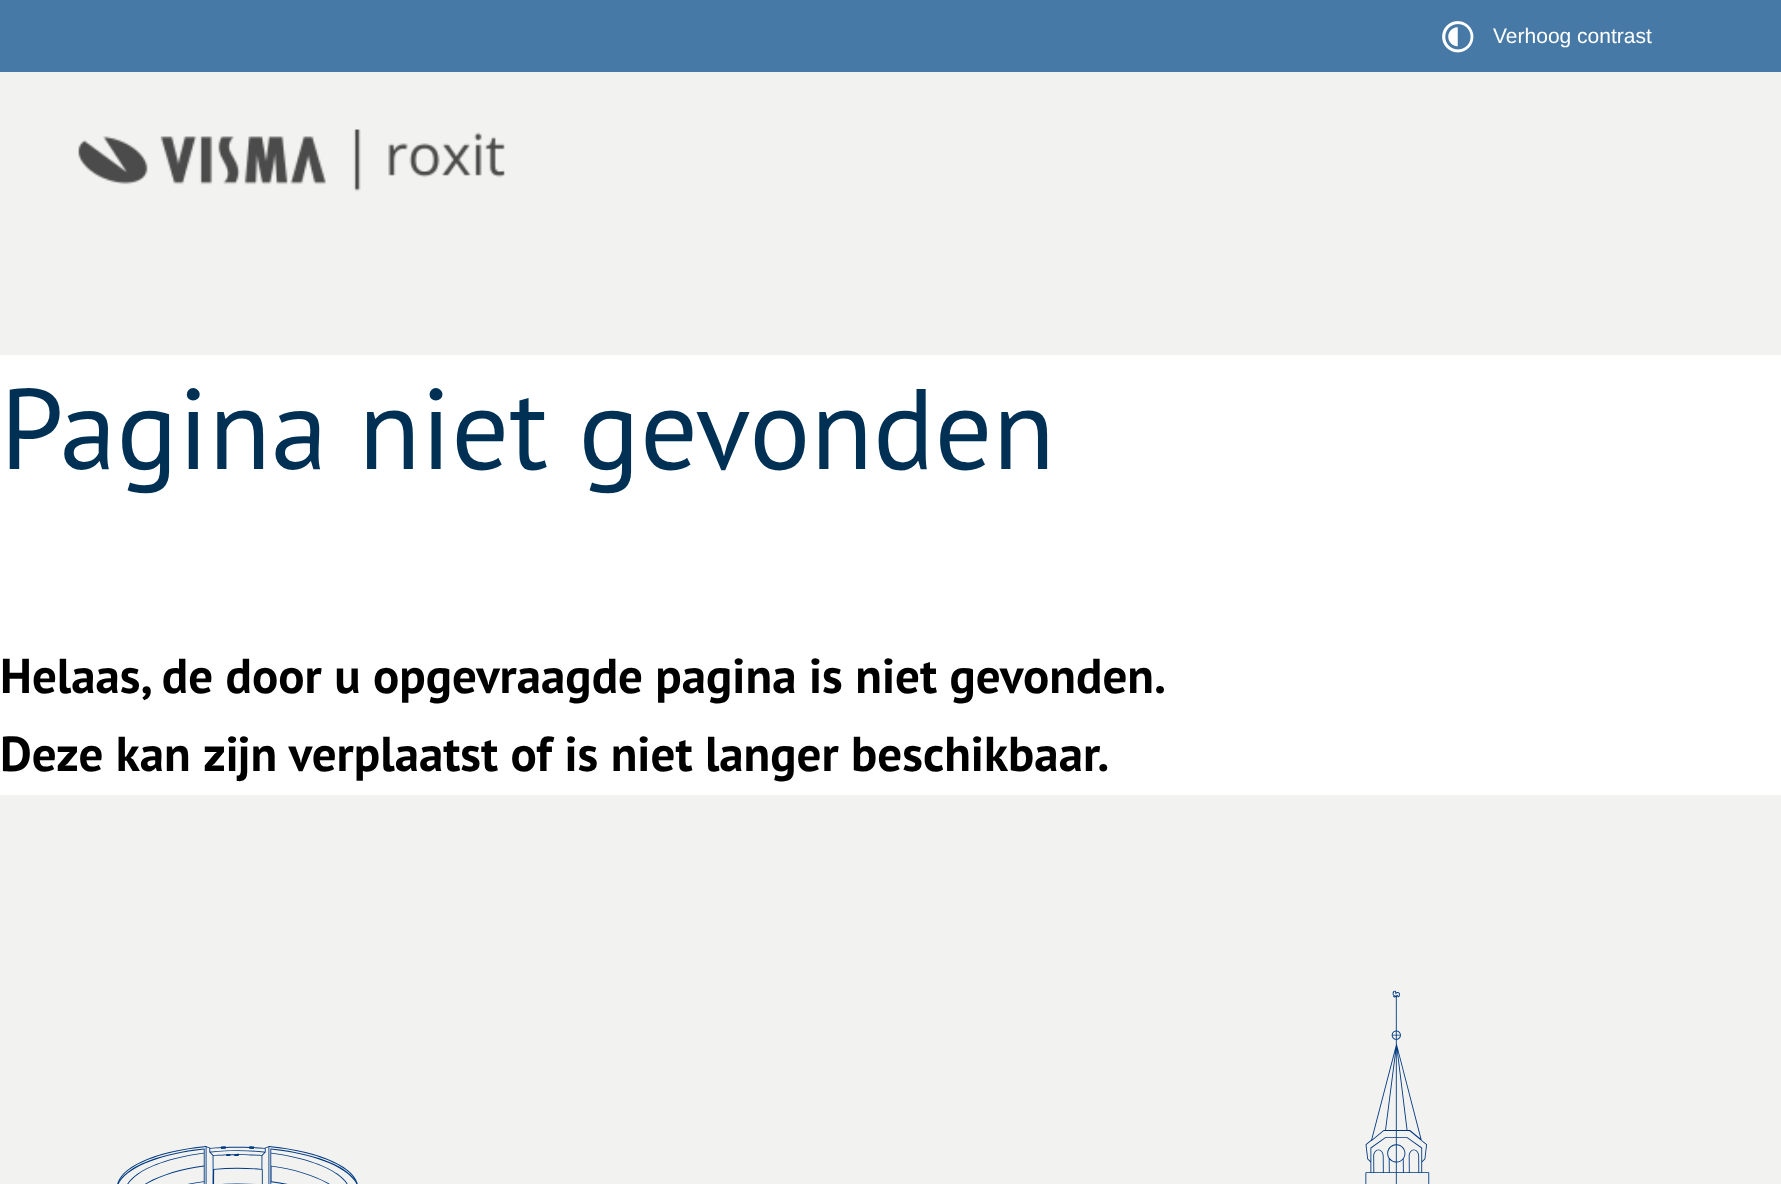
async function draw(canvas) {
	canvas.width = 1781;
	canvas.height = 1184;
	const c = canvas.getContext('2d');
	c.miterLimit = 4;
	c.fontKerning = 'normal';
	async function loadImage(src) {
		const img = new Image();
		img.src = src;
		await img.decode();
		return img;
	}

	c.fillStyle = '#f2f2f0';
	c.fillRect(0, 0, 1781, 1184);
	c.fillStyle = '#4779a6';
	c.fillRect(0, 0, 1781, 72);
	c.drawImage(await loadImage('img1.png'), 1442, 21, 32, 32);
	c.font = '21px Liberation Sans';
	c.fillStyle = '#fff';
	c.fillText('Verhoog contrast', 1493, 43);
	c.drawImage(await loadImage('img2.png'), 78, 129, 427, 63);
	c.fillRect(0, 355, 1781, 440);
	c.font = '114.25px PT Sans';
	c.fillStyle = '#003054';
	c.fillText('Pagina niet gevonden', 0, 469);
	c.font = 'bold 49px PT Sans';
	c.fillStyle = '#000';
	c.fillText('Helaas, de door u opgevraagde pagina is niet gevonden.', 0, 693);
	c.fillText('Deze kan zijn verplaatst of is niet langer beschikbaar.', 0, 771);
	c.drawImage(await loadImage('img3.png'), 117, 990, 1313, 194);
}

draw(document.querySelector('canvas'));
